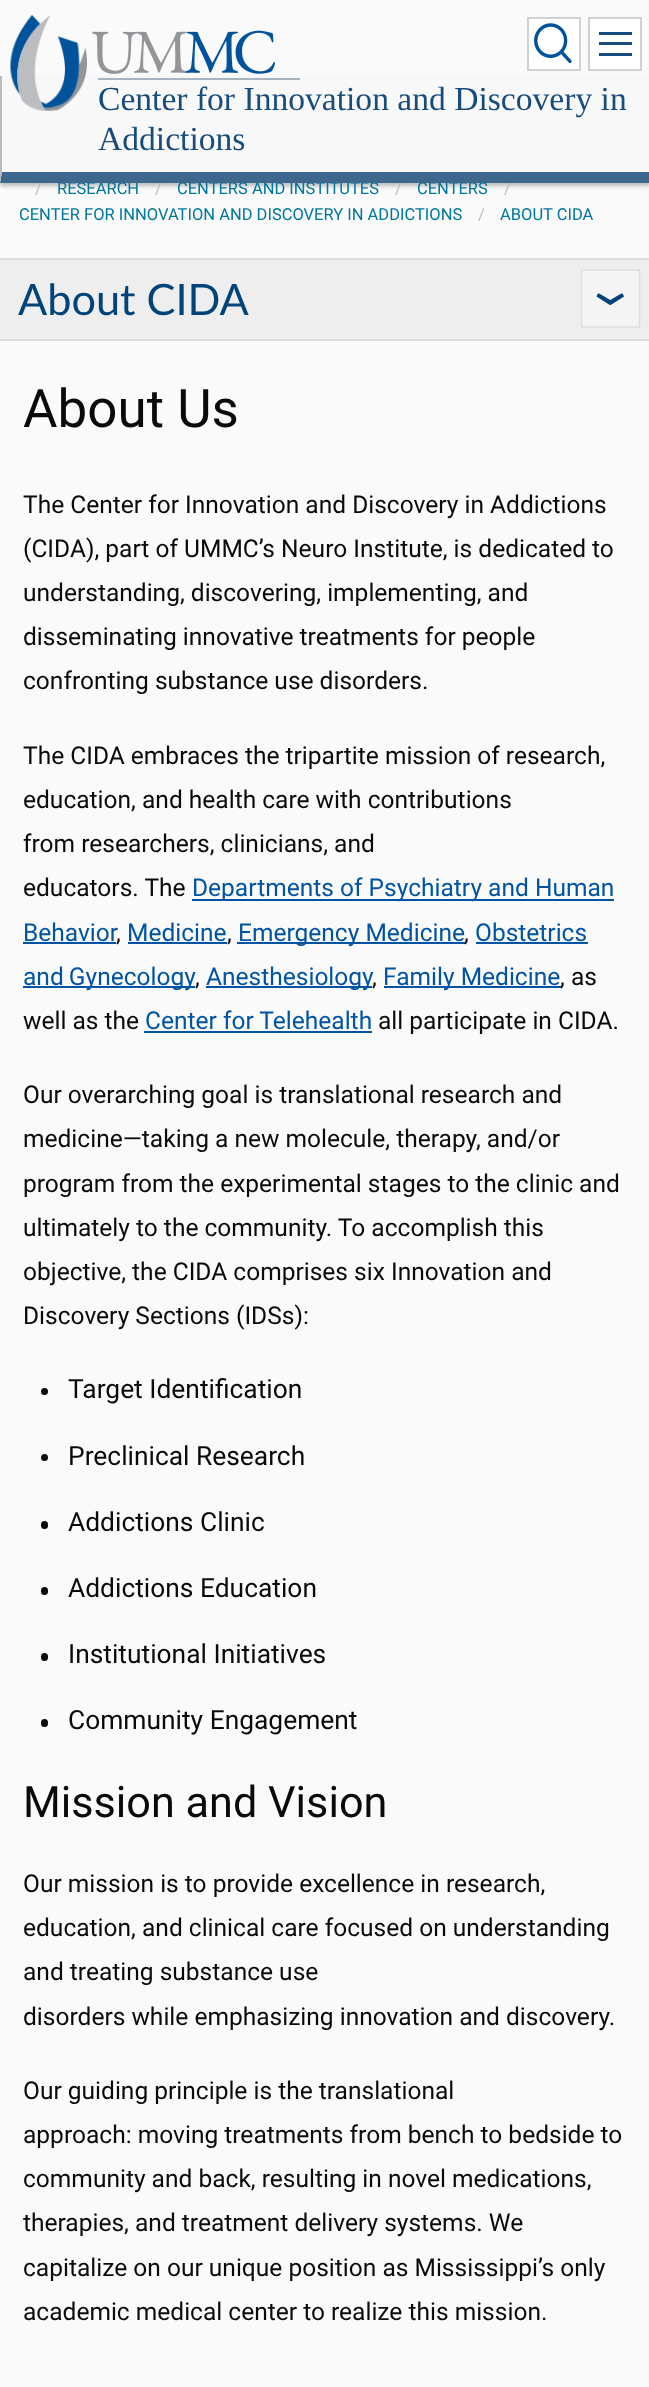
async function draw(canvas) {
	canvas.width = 649;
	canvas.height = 2387;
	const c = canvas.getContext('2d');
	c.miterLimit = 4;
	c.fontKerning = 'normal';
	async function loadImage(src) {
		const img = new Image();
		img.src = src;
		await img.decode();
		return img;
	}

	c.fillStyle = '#fafafa';
	c.fillRect(0, 0, 649, 2387);
	c.fillStyle = '#00000040';
	c.filter = 'blur(2px)';
	c.beginPath();
	c.rect(0, 80, 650, 106);
	c.fill();
	c.filter = 'none';
	c.font = '16.5px Roboto';
	c.fillStyle = '#bbb';
	c.fillText('/', 35, 194);
	c.fillStyle = '#00779c';
	c.fillText('RESEARCH', 57, 194);
	c.fillStyle = '#bbb';
	c.fillText('/', 155, 194);
	c.fillStyle = '#00779c';
	c.fillText('CENTERS AND INSTITUTES', 177, 194);
	c.fillStyle = '#bbb';
	c.fillText('/', 395, 194);
	c.fillStyle = '#00779c';
	c.fillText('CENTERS', 417, 194);
	c.fillStyle = '#bbb';
	c.fillText('/', 504, 194);
	c.fillStyle = '#f8f8f8';
	c.fillRect(0, 77, 649, 106);
	c.drawImage(await loadImage('img1.png'), 10, 15, 77, 96);
	c.fillStyle = '#a7b4bf';
	c.fillRect(98, 78, 202, 2);
	c.drawImage(await loadImage('img2.png'), 92, 30, 183, 44);
	c.fillStyle = '#fff';
	c.fillRect(529, 19, 50, 50);
	c.drawImage(await loadImage('img3.png'), 534, 23, 38, 40);
	c.strokeStyle = '#d1d1d1';
	c.lineWidth = 2;
	c.strokeRect(528, 18, 52, 52);
	c.beginPath();
	c.rect(589, 18, 52, 52);
	c.fill();
	c.stroke();
	for (const [x, y, w, h, color] of [
		[599, 42, 33, 3, '#184c7c'],
		[599, 32, 33, 3, '#184c7c'],
		[599, 53, 33, 3, '#184c7c'],
	]) {
		c.fillStyle = color;
		c.fillRect(x, y, w, h);
	}
	c.fillStyle = '#3e678d';
	c.beginPath();
	c.moveTo(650, 183);
	c.lineTo(0, 183);
	c.lineTo(2, 172);
	c.lineTo(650, 172);
	c.closePath();
	c.fill();
	c.fillStyle = '#bbb';
	c.beginPath();
	c.moveTo(0, 183);
	c.lineTo(0, 76);
	c.lineTo(2, 76);
	c.lineTo(2, 172);
	c.closePath();
	c.fill();
	c.font = '33.6px Liberation Serif';
	c.fillStyle = '#184c7c';
	c.fillText('Center for Innovation and Discovery in', 98, 110);
	c.fillText('Addictions', 98, 150);
	c.font = '16.5px Roboto';
	c.fillStyle = '#00779c';
	c.fillText('CENTER FOR INNOVATION AND DISCOVERY IN ADDICTIONS', 19, 220);
	c.fillStyle = '#bbb';
	c.fillText('/', 478, 220);
	c.fillStyle = '#00779c';
	c.fillText('ABOUT CIDA', 500, 220);
	for (const [x, y, w, h, color] of [
		[0, 260, 649, 79, '#eee'],
		[0, 258, 649, 2, '#ddd'],
		[0, 339, 649, 2, '#ddd'],
	]) {
		c.fillStyle = color;
		c.fillRect(x, y, w, h);
	}
	c.font = '43.25px Lato';
	c.fillStyle = '#024379';
	c.fillText('About CIDA', 18, 315);
	c.fillStyle = '#f4f4f4';
	c.fillRect(581, 269, 59, 59);
	c.beginPath();
	c.moveTo(639.5, 270);
	c.lineTo(639.5, 327);
	c.lineTo(581.5, 327);
	c.lineTo(581.5, 270);
	c.closePath();
	c.strokeStyle = '#ddd';
	c.lineWidth = 1.5;
	c.stroke();
	c.font = '69px Lato';
	c.fillStyle = '#024379';
	c.save();
	c.translate(592, 289);
	c.rotate(90 * Math.PI / 180);
	c.fillText('›', 0, 0);
	c.restore();
	c.font = '53px Roboto';
	c.fillStyle = '#0a0a0a';
	c.fillText('About Us', 23, 427);
	c.font = '24.55px Roboto';
	for (const [text, x, y] of [
		['The Center for Innovation and Discovery in Addictions', 23, 513],
		['(CIDA), part of UMMC’s Neuro Institute, is dedicated to', 23, 557],
		['understanding, discovering, implementing, and', 23, 601],
		['disseminating innovative treatments for people', 23, 645],
		['confronting substance use disorders.', 23, 689],
		['The CIDA embraces the tripartite mission of research,', 23, 764],
		['education, and health care with contributions', 23, 808],
		['from researchers, clinicians, and', 23, 852],
		['educators. The', 23, 896],
	]) {
		c.fillText(text, x, y);
	}
	c.fillStyle = '#0054a3';
	c.fillRect(192, 899, 422, 2);
	c.fillText('Departments of Psychiatry and Human', 192, 896);
	c.fillText('Behavior', 23, 941);
	c.fillRect(23, 942, 93, 2);
	c.fillText('Medicine', 127, 941);
	c.fillRect(128, 942, 99, 2);
	c.fillRect(237, 942, 228, 2);
	c.fillText('Emergency Medicine', 238, 941);
	c.fillText('Obstetrics', 475, 941);
	c.fillRect(476, 942, 112, 2);
	c.fillStyle = '#0a0a0a';
	for (const [text, x, y] of [
		[',', 116, 941],
		[',', 227, 941],
		[',', 464, 941],
	]) {
		c.fillText(text, x, y);
	}
	c.fillStyle = '#0054a3';
	c.fillRect(23, 986, 172, 2);
	c.wordSpacing = '-1px';
	c.fillText('and Gynecology', 23, 985);
	c.wordSpacing = '0px';
	c.fillStyle = '#0a0a0a';
	c.fillText(',', 195, 985);
	c.fillStyle = '#0054a3';
	c.fillRect(206, 986, 166, 2);
	c.fillText('Anesthesiology', 206, 985);
	c.fillStyle = '#0a0a0a';
	c.fillText(',', 372, 985);
	c.fillStyle = '#0054a3';
	c.fillRect(384, 986, 177, 2);
	c.fillText('Family Medicine', 383, 985);
	c.fillStyle = '#0a0a0a';
	c.fillText(', as', 560, 985);
	c.fillText('well as the', 23, 1029);
	c.fillStyle = '#0054a3';
	c.fillText('Center for Telehealth', 145, 1029);
	c.fillRect(144, 1031, 228, 2);
	c.fillStyle = '#0a0a0a';
	for (const [text, x, y] of [
		['all participate in CIDA.', 378, 1029],
		['Our overarching goal is translational research and', 23, 1103],
		['medicine—taking a new molecule, therapy, and/or', 23, 1147],
		['program from the experimental stages to the clinic and', 23, 1192],
		['ultimately to the community. To accomplish this', 23, 1236],
		['objective, the CIDA comprises six Innovation and', 23, 1280],
		['Discovery Sections (IDSs):', 23, 1324],
	]) {
		c.fillText(text, x, y);
	}
	c.beginPath();
	c.arc(44.5, 1391.5, 3.5, 0, 2 * Math.PI);
	c.fill();
	c.font = '26.4px Roboto';
	c.fillText('Target Identification', 68, 1398);
	c.beginPath();
	c.arc(44.5, 1457.5, 3.5, 0, 2 * Math.PI);
	c.fill();
	c.fillText('Preclinical Research', 68, 1465);
	c.beginPath();
	c.roundRect(41, 1521, 7, 8, 3.5);
	c.fill();
	c.fillText('Addictions Clinic', 68, 1531);
	c.beginPath();
	c.roundRect(41, 1587, 7, 8, 3.5);
	c.fill();
	c.fillText('Addictions Education', 68, 1597);
	c.beginPath();
	c.roundRect(41, 1653, 7, 8, 3.5);
	c.fill();
	c.fillText('Institutional Initiatives', 68, 1663);
	c.beginPath();
	c.roundRect(41, 1719, 7, 8, 3.5);
	c.fill();
	c.fillText('Community Engagement', 68, 1729);
	c.font = '43.25px Roboto';
	c.fillText('Mission and Vision', 23, 1817);
	c.font = '24.55px Roboto';
	for (const [text, x, y] of [
		['Our mission is to provide excellence in research,', 23, 1892],
		['education, and clinical care focused on understanding', 23, 1936],
		['and treating substance use', 23, 1980],
		['disorders while emphasizing innovation and discovery.', 23, 2025],
		['Our guiding principle is the translational', 23, 2099],
		['approach: moving treatments from bench to bedside to', 23, 2143],
		['community and back, resulting in novel medications,', 23, 2187],
		['therapies, and treatment delivery systems. We', 23, 2231],
		['capitalize on our unique position as Mississippi’s only', 23, 2276],
		['academic medical center to realize this mission.', 23, 2320],
	]) {
		c.fillText(text, x, y);
	}
}

draw(document.querySelector('canvas'));
